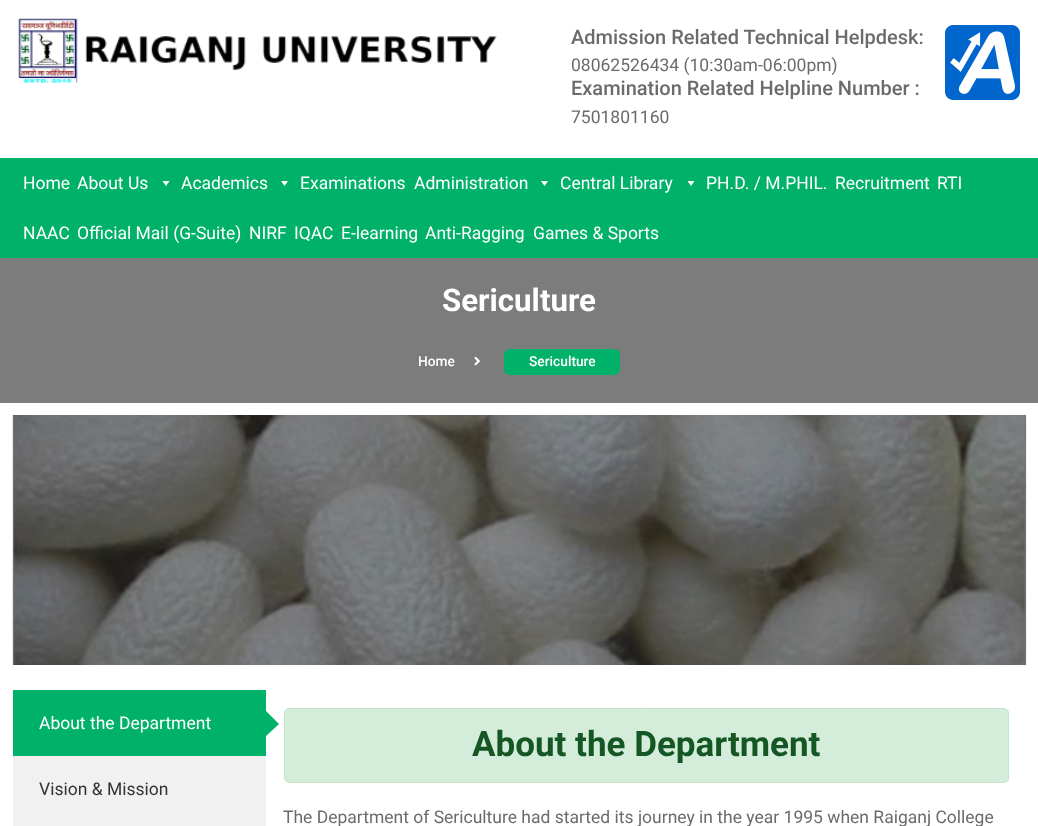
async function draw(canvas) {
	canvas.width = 1038;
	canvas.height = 826;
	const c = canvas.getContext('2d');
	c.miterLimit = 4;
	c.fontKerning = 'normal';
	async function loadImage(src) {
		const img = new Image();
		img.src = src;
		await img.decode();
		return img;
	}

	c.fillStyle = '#fff';
	c.fillRect(0, 0, 1038, 826);
	c.drawImage(await loadImage('img1.png'), 18, 18, 479, 65);
	c.font = '500 20px Roboto';
	c.fillStyle = '#6b6b6b';
	c.fillText('Admission Related Technical Helpdesk:', 571, 44);
	c.font = '17.5px Roboto';
	c.fillText('08062526434 (10:30am-06:00pm)', 571, 71);
	c.font = '500 20px Roboto';
	c.fillText('Examination Related Helpline Number :', 571, 95);
	c.font = '17.5px Roboto';
	c.fillText('7501801160', 571, 123);
	c.drawImage(await loadImage('img2.png'), 945, 25, 75, 75);
	c.fillStyle = '#00b16a';
	c.fillRect(0, 158, 1038, 100);
	c.fillStyle = '#fff';
	c.fillText('Home', 23, 189);
	c.fillText('About Us', 77, 189);
	c.beginPath();
	c.moveTo(169.5, 181);
	c.lineTo(166, 186);
	c.lineTo(162.5, 181);
	c.closePath();
	c.fill();
	c.fillText('Academics', 181, 189);
	c.beginPath();
	c.moveTo(288, 181);
	c.lineTo(284.5, 186);
	c.lineTo(281, 181);
	c.closePath();
	c.fill();
	c.fillText('Examinations', 300, 189);
	c.fillText('Administration', 414, 189);
	c.beginPath();
	c.moveTo(548, 181);
	c.lineTo(544.5, 186);
	c.lineTo(541, 181);
	c.closePath();
	c.fill();
	c.fillText('Central Library', 560, 189);
	c.beginPath();
	c.moveTo(694.5, 181);
	c.lineTo(691, 186);
	c.lineTo(687.5, 181);
	c.closePath();
	c.fill();
	for (const [text, x, y] of [
		['PH.D. / M.PHIL.', 706, 189],
		['Recruitment', 835, 189],
		['RTI', 937, 189],
		['NAAC', 23, 239],
		['Official Mail (G-Suite)', 77, 239],
		['NIRF', 249, 239],
		['IQAC', 294, 239],
		['E-learning', 341, 239],
		['Anti-Ragging', 425, 239],
		['Games & Sports', 533, 239],
	]) {
		c.fillText(text, x, y);
	}
	c.fillStyle = '#7c7c7c';
	c.fillRect(0, 258, 1038, 145);
	c.font = 'bold 31.25px Roboto';
	c.fillStyle = '#fff';
	c.fillText('Sericulture', 442, 311);
	c.font = '500 13.75px Roboto';
	c.fillText('Home', 418, 366);
	c.drawImage(await loadImage('img3.png'), 474, 356, 6, 10);
	c.fillStyle = '#00b16a';
	c.beginPath();
	c.roundRect(504, 349, 116, 26, 6);
	c.fill();
	c.fillStyle = '#fff';
	c.fillText('Sericulture', 529, 366);
	c.drawImage(await loadImage('img4.png'), 12, 415, 1015, 250);
	c.fillStyle = '#00b16a';
	c.fillRect(13, 690, 253, 66);
	c.font = '17.5px Roboto';
	c.fillStyle = '#fff';
	c.fillText('About the Department', 39, 729);
	c.fillStyle = '#00b16a';
	c.beginPath();
	c.moveTo(266, 736);
	c.lineTo(266, 711);
	c.lineTo(279, 724);
	c.closePath();
	c.fill();
	c.fillStyle = '#f1f1f1';
	c.fillRect(13, 756, 253, 70);
	c.fillStyle = '#333';
	c.fillText('Vision & Mission', 39, 795);
	c.fillStyle = '#d4edda';
	c.beginPath();
	c.roundRect(284.5, 708.5, 724, 74, 4.5);
	c.fill();
	c.strokeStyle = '#c3e6cb';
	c.stroke();
	c.font = 'bold 35px Roboto';
	c.fillStyle = '#155724';
	c.fillText('About the Department', 472, 756);
	c.font = '17.5px Roboto';
	c.fillStyle = '#6b6b6b';
	c.fillText('The Department of Sericulture had started its journey in the year 1995 when Raiganj College', 283, 823);
}

draw(document.querySelector('canvas'));
